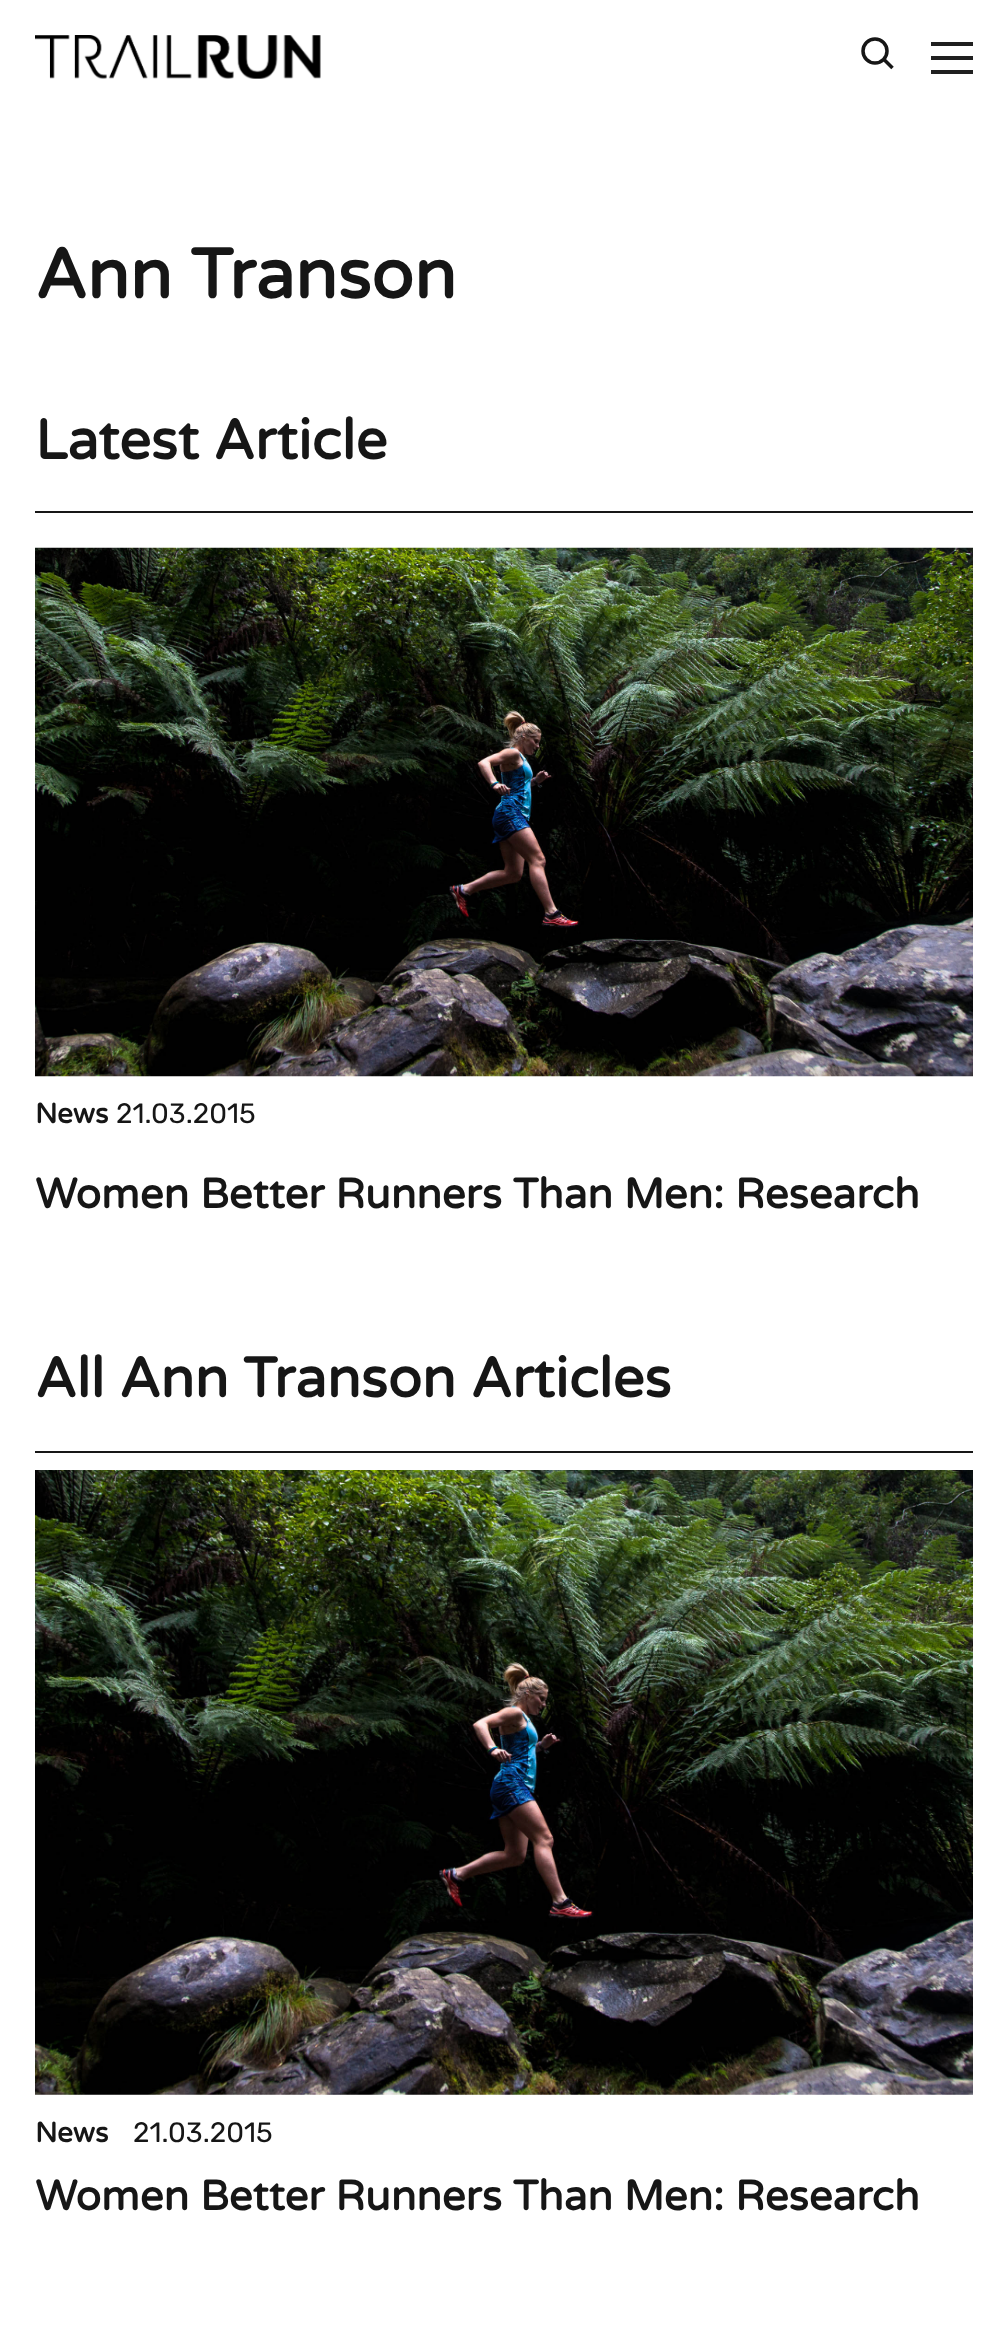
async function draw(canvas) {
	canvas.width = 1007;
	canvas.height = 2349;
	const c = canvas.getContext('2d');
	c.miterLimit = 4;
	c.fontKerning = 'normal';
	async function loadImage(src) {
		const img = new Image();
		img.src = src;
		await img.decode();
		return img;
	}

	c.fillStyle = '#fff';
	c.fillRect(0, 0, 1007, 2349);
	c.drawImage(await loadImage('img1.png'), 35, 35, 286, 44);
	c.beginPath();
	c.arc(875, 51, 12, 0, 2 * Math.PI);
	c.strokeStyle = '#161616';
	c.lineWidth = 3.5;
	c.stroke();
	c.beginPath();
	c.moveTo(884, 59.5);
	c.lineTo(892.5, 68);
	c.stroke();
	c.drawImage(await loadImage('img2.png'), 931, 42, 42, 32);
	c.font = 'bold 70px Varela Round';
	c.fillStyle = '#161616';
	c.fillText('Ann Transon', 35, 298);
	c.fillRect(35, 511, 938, 2);
	c.font = 'bold 56px Varela Round';
	c.fillText('Latest Article', 35, 459);
	c.drawImage(await loadImage('img3.png'), 35, 547, 938, 530);
	c.font = 'bold 28px Varela Round';
	c.fillText('News', 35, 1123);
	c.font = '28px Rubik';
	c.fillText('21.03.2015', 116, 1123);
	c.font = 'bold 42px Varela Round';
	c.fillText('Women Better Runners Than Men: Research', 35, 1208);
	c.font = 'bold 56px Varela Round';
	c.fillText('All Ann Transon Articles', 35, 1397);
	c.fillRect(35, 1451, 938, 2);
	c.drawImage(await loadImage('img4.png'), 35, 1470, 938, 625);
	c.font = 'bold 28px Varela Round';
	c.fillText('News', 35, 2142);
	c.font = '28px Rubik';
	c.fillText('21.03.2015', 133, 2142);
	c.font = 'bold 42px Varela Round';
	c.fillText('Women Better Runners Than Men: Research', 35, 2210);
}

draw(document.querySelector('canvas'));
